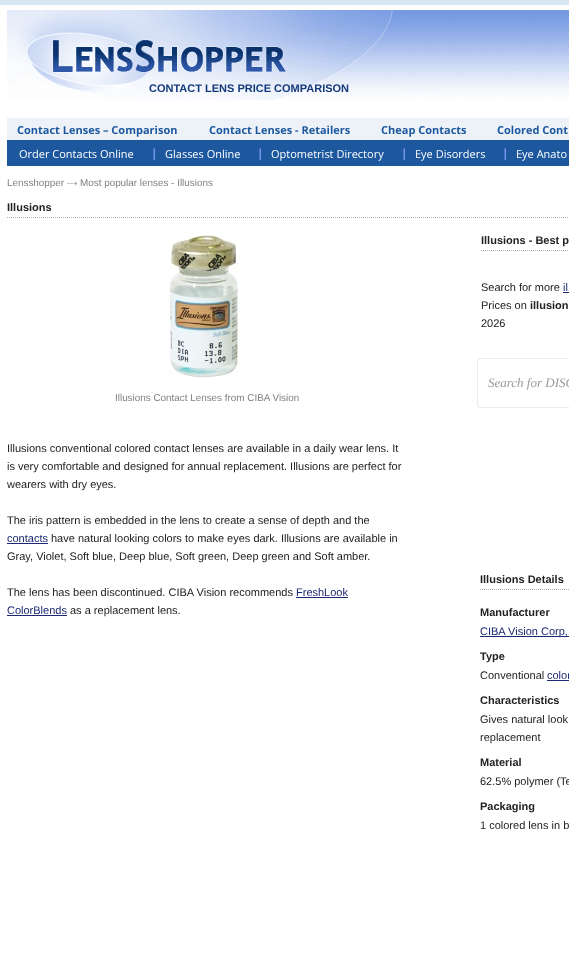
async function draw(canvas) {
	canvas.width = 569;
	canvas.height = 977;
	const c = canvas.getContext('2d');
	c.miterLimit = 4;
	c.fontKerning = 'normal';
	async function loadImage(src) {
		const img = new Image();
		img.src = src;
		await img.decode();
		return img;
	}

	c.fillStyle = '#d8e5f2';
	c.fillRect(0, 0, 569, 977);
	c.fillStyle = '#fff';
	c.fillRect(0, 5, 569, 972);
	c.drawImage(await loadImage('img1.png'), 7, 10, 562, 90);
	c.font = 'bold 11px Liberation Sans';
	c.fillStyle = '#143a7b';
	c.fillText('CONTACT LENS PRICE COMPARISON', 149, 92);
	c.fillStyle = '#ecf2f8';
	c.fillRect(7, 118, 562, 22);
	c.font = 'bold 11px Open Sans';
	c.fillStyle = '#1d589f';
	for (const [text, x, y] of [
		['Contact Lenses – Comparison', 17, 134],
		['Contact Lenses - Retailers', 209, 134],
		['Cheap Contacts', 381, 134],
		['Colored Cont', 497, 134],
	]) {
		c.fillText(text, x, y);
	}
	c.fillRect(7, 140, 562, 26);
	c.font = '11px Open Sans';
	c.fillStyle = '#fff';
	c.fillText('Order Contacts Online', 19, 158);
	c.drawImage(await loadImage('img2.png'), 153, 148, 2, 12);
	c.fillText('Glasses Online', 165, 158);
	c.drawImage(await loadImage('img2.png'), 259, 148, 2, 12);
	c.fillText('Optometrist Directory', 271, 158);
	c.drawImage(await loadImage('img2.png'), 403, 148, 2, 12);
	c.fillText('Eye Disorders', 415, 158);
	c.drawImage(await loadImage('img2.png'), 504, 148, 2, 12);
	c.fillText('Eye Anato', 516, 158);
	c.font = '9.9px Liberation Sans';
	c.fillStyle = '#808080';
	c.fillText('Lensshopper', 7, 186);
	c.font = '9.9px FreeSerif';
	c.fillText('⤏', 67, 186);
	c.font = '9.9px Liberation Sans';
	c.fillText('Most popular lenses - Illusions', 80, 186);
	c.beginPath();
	c.moveTo(7, 217.5);
	c.lineTo(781, 217.5);
	c.strokeStyle = '#b7b4ae';
	c.setLineDash([1, 1]);
	c.stroke();
	c.font = 'bold 11px Liberation Sans';
	c.fillStyle = '#222';
	c.fillText('Illusions', 7, 211);
	c.beginPath();
	c.moveTo(481, 250.5);
	c.lineTo(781, 250.5);
	c.stroke();
	c.fillText('Illusions - Best p', 481, 244);
	c.font = '11px Liberation Sans';
	c.fillText('Search for more', 481, 291);
	c.fillStyle = '#1c2873';
	c.fillText('il', 563, 291);
	c.fillRect(563, 292, 6, 1);
	c.fillStyle = '#222';
	c.fillText('Prices on', 481, 309);
	c.font = 'bold 11px Liberation Sans';
	c.fillText('illusion', 530, 309);
	c.font = '11px Liberation Sans';
	c.fillText('2026', 481, 327);
	c.beginPath();
	c.moveTo(480, 358.5);
	c.lineTo(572.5, 358.5);
	c.lineTo(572.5, 407.5);
	c.lineTo(480, 407.5);
	c.bezierCurveTo(478.5, 407.5, 477.5, 406.5, 477.5, 405);
	c.lineTo(477.5, 361);
	c.bezierCurveTo(477.5, 359.5, 478.5, 358.5, 480, 358.5);
	c.closePath();
	c.strokeStyle = '#eaeaea';
	c.setLineDash([]);
	c.stroke();
	c.font = 'italic 13px Liberation Serif';
	c.fillStyle = '#999';
	c.fillText('Search for DISC', 488, 387);
	c.drawImage(await loadImage('img3.png'), 164, 233, 77, 145);
	c.font = '9.9px Liberation Sans';
	c.fillStyle = '#808080';
	c.fillText('Illusions Contact Lenses from CIBA Vision', 115, 401);
	c.font = '11px Liberation Sans';
	c.fillStyle = '#222';
	for (const [text, x, y] of [
		['Illusions conventional colored contact lenses are available in a daily wear lens. It', 7, 452],
		['is very comfortable and designed for annual replacement. Illusions are perfect for', 7, 470],
		['wearers with dry eyes.', 7, 488],
		['The iris pattern is embedded in the lens to create a sense of depth and the', 7, 524],
	]) {
		c.fillText(text, x, y);
	}
	c.fillStyle = '#1c2873';
	c.fillText('contacts', 7, 542);
	c.fillRect(7, 543, 41, 1);
	c.fillStyle = '#222';
	for (const [text, x, y] of [
		['have natural looking colors to make eyes dark. Illusions are available in', 51, 542],
		['Gray, Violet, Soft blue, Deep blue, Soft green, Deep green and Soft amber.', 7, 560],
		['The lens has been discontinued. CIBA Vision recommends', 7, 596],
	]) {
		c.fillText(text, x, y);
	}
	c.fillStyle = '#1c2873';
	c.fillText('FreshLook', 296, 596);
	c.fillRect(296, 597, 52, 1);
	c.fillText('ColorBlends', 7, 614);
	c.fillRect(7, 615, 60, 1);
	c.fillStyle = '#222';
	c.fillText('as a replacement lens.', 70, 614);
	c.beginPath();
	c.moveTo(480, 589.5);
	c.lineTo(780, 589.5);
	c.strokeStyle = '#b7b4ae';
	c.setLineDash([1, 1]);
	c.stroke();
	c.font = 'bold 11px Liberation Sans';
	c.fillText('Illusions Details', 480, 583);
	c.fillText('Manufacturer', 480, 616);
	c.fillStyle = '#1c2873';
	c.fillRect(480, 636, 89, 1);
	c.font = '11px Liberation Sans';
	c.fillText('CIBA Vision Corp,', 480, 635);
	c.font = 'bold 11px Liberation Sans';
	c.fillStyle = '#222';
	c.fillText('Type', 480, 660);
	c.font = '11px Liberation Sans';
	c.fillText('Conventional', 480, 679);
	c.fillStyle = '#1c2873';
	c.fillText('color', 547, 679);
	c.fillRect(547, 680, 22, 1);
	c.font = 'bold 11px Liberation Sans';
	c.fillStyle = '#222';
	c.fillText('Characteristics', 480, 704);
	c.font = '11px Liberation Sans';
	c.fillText('Gives natural look', 480, 723);
	c.fillText('replacement', 480, 741);
	c.font = 'bold 11px Liberation Sans';
	c.fillText('Material', 480, 766);
	c.font = '11px Liberation Sans';
	c.fillText('62.5% polymer (Te', 480, 785);
	c.font = 'bold 11px Liberation Sans';
	c.fillText('Packaging', 480, 810);
	c.font = '11px Liberation Sans';
	c.fillText('1 colored lens in b', 480, 829);
}

draw(document.querySelector('canvas'));
